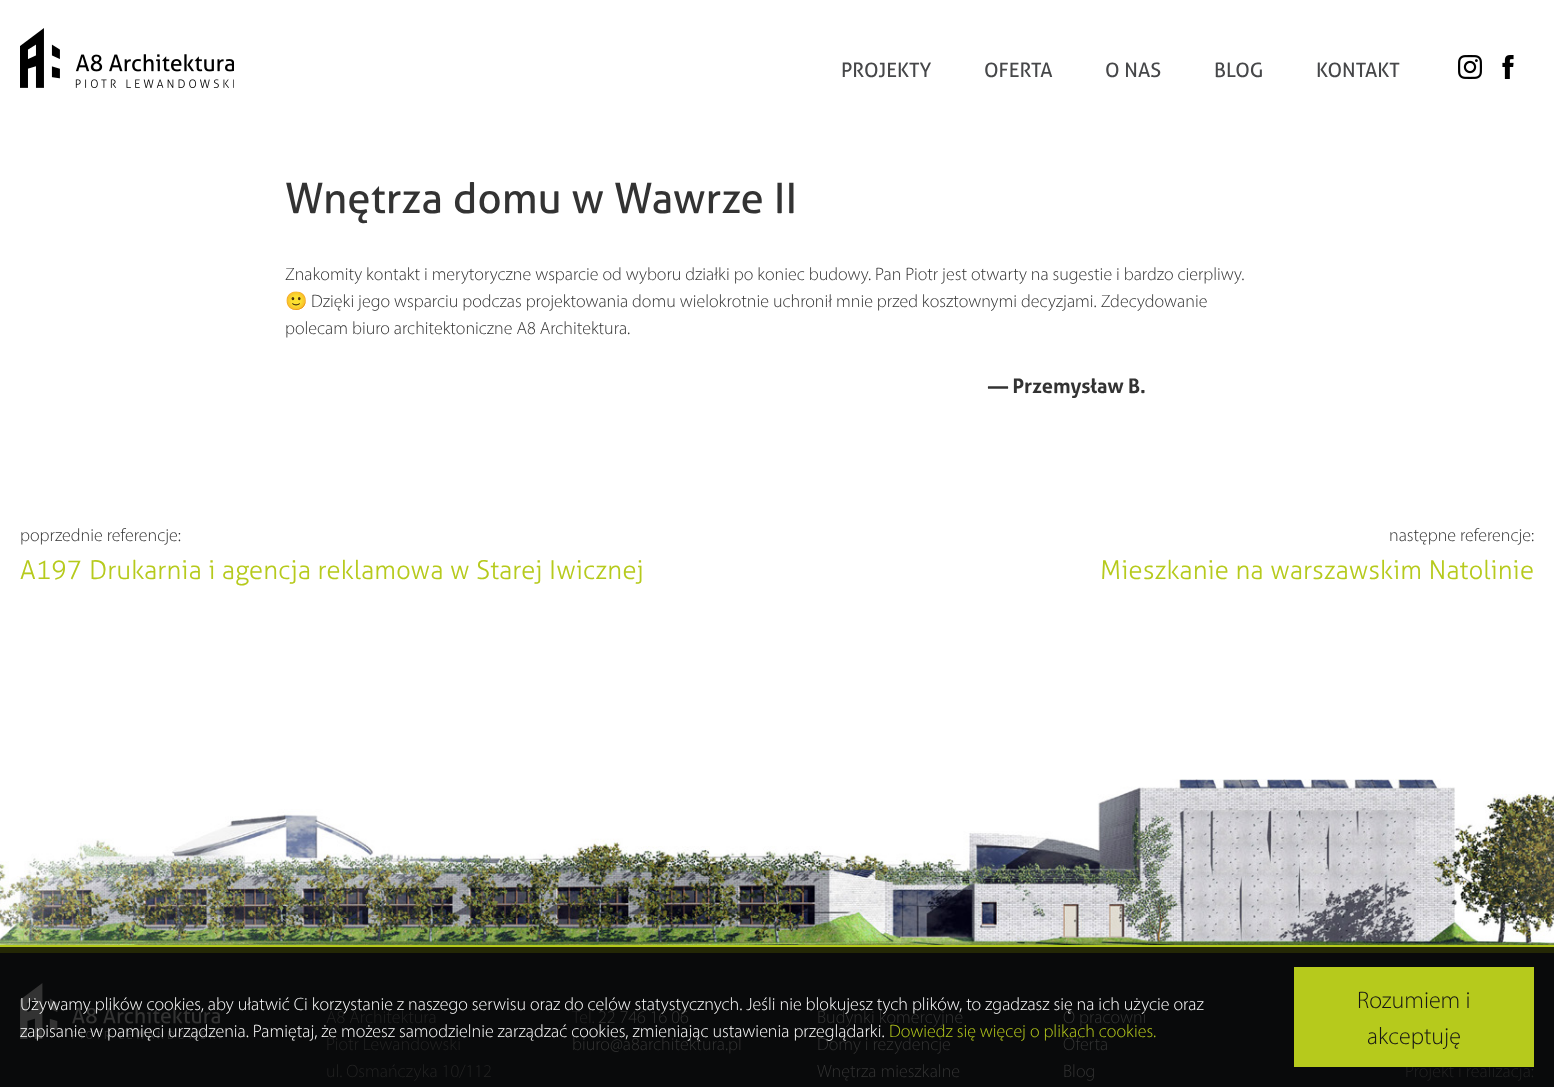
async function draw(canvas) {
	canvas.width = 1554;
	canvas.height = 1087;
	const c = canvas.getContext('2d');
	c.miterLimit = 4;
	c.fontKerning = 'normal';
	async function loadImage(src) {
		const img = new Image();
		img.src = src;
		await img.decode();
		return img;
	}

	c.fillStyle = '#090a0b';
	c.fillRect(0, 0, 1554, 1087);
	c.fillStyle = '#fff';
	c.fillRect(0, 0, 1554, 779);
	c.drawImage(await loadImage('img1.png'), 20, 28, 214, 60);
	c.font = '20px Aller';
	c.fillStyle = '#464749';
	for (const [text, x, y] of [
		['PROJEKTY', 841, 77],
		['OFERTA', 984, 77],
		['O NAS', 1105, 77],
		['BLOG', 1214, 77],
		['KONTAKT', 1316, 77],
	]) {
		c.fillText(text, x, y);
	}
	c.drawImage(await loadImage('img2.png'), 1458, 55, 24, 24);
	c.drawImage(await loadImage('img3.png'), 1502, 55, 12, 24);
	c.font = '42px Aller';
	c.fillStyle = '#333';
	c.fillText('Wnętrza domu w Wawrze II', 285, 213);
	c.font = '300 18px Myriad';
	c.fillText('Znakomity kontakt i merytoryczne wsparcie od wyboru działki po koniec budowy. Pan Piotr jest otwarty na sugestie i bardzo cierpliwy.', 285, 280);
	c.font = '18px Noto Color Emoji';
	c.fillText('🙂', 285, 307);
	c.font = '300 18px Myriad';
	c.fillText('Dzięki jego wsparciu podczas projektowania domu wielokrotnie uchronił mnie przed kosztownymi decyzjami. Zdecydowanie', 311, 307);
	c.fillText('polecam biuro architektoniczne A8 Architektura.', 285, 334);
	c.font = 'bold 20px Aller';
	c.fillText('— Przemysław B.', 988, 393);
	c.font = '300 18px Myriad';
	c.fillText('poprzednie referencje:', 20, 541);
	c.font = '300 26px Aller';
	c.fillStyle = '#b6ca1c';
	c.fillText('A197 Drukarnia i agencja reklamowa w Starej Iwicznej', 20, 579);
	c.font = '300 18px Myriad';
	c.fillStyle = '#333';
	c.fillText('następne referencje:', 1389, 541);
	c.font = '300 26px Aller';
	c.fillStyle = '#b6ca1c';
	c.fillText('Mieszkanie na warszawskim Natolinie', 1100, 579);
	c.drawImage(await loadImage('img4.png'), 0, 779, 1554, 166);
	c.drawImage(await loadImage('img5.png'), 20, 983, 200, 56);
	c.font = '300 18px Myriad';
	c.fillStyle = '#fff';
	c.fillText('Używamy plików cookies, aby ułatwić Ci korzystanie z naszego serwisu oraz do celów statystycznych. Jeśli nie blokujesz tych plików, to zgadzasz się na ich użycie oraz', 20, 1010);
	c.fillText('zapisanie w pamięci urządzenia. Pamiętaj, że możesz samodzielnie zarządzać cookies, zmieniając ustawienia przeglądarki.', 20, 1037);
	c.fillStyle = '#b6ca1c';
	c.fillText('Dowiedz się więcej o plikach cookies.', 889, 1037);
	c.fillStyle = '#222';
	c.fillText('Projekt i realizacja:', 1405, 1077);
	c.fillStyle = '#b6ca1c';
	c.fillRect(1294, 967, 240, 100);
	c.font = '300 24px Myriad';
	c.fillStyle = '#161615';
	c.fillText('Rozumiem i', 1357, 1008);
	c.fillText('akceptuję', 1367, 1044);
	c.fillStyle = '#b6ca1c';
	c.fillRect(0, 945, 1554, 2);
	c.fillStyle = '#242806';
	c.fillRect(0, 947, 1554, 6);
	c.font = '300 18px Myriad';
	c.fillStyle = '#222';
	for (const [text, x, y] of [
		['A8 Architektura', 326, 1023],
		['Piotr Lewandowski', 326, 1050],
		['ul. Osmańczyka 10/112', 326, 1077],
		['Tel.', 572, 1023],
	]) {
		c.fillText(text, x, y);
	}
	c.fillStyle = '#333';
	for (const [text, x, y] of [
		['22 746 16 06', 598, 1023],
		['biuro@a8architektura.pl', 572, 1050],
		['Budynki komercyjne', 817, 1023],
		['Domy i rezydencje', 817, 1050],
		['Wnętrza mieszkalne', 817, 1077],
		['O pracowni', 1063, 1023],
		['Oferta', 1063, 1050],
		['Blog', 1063, 1077],
	]) {
		c.fillText(text, x, y);
	}
}

draw(document.querySelector('canvas'));
